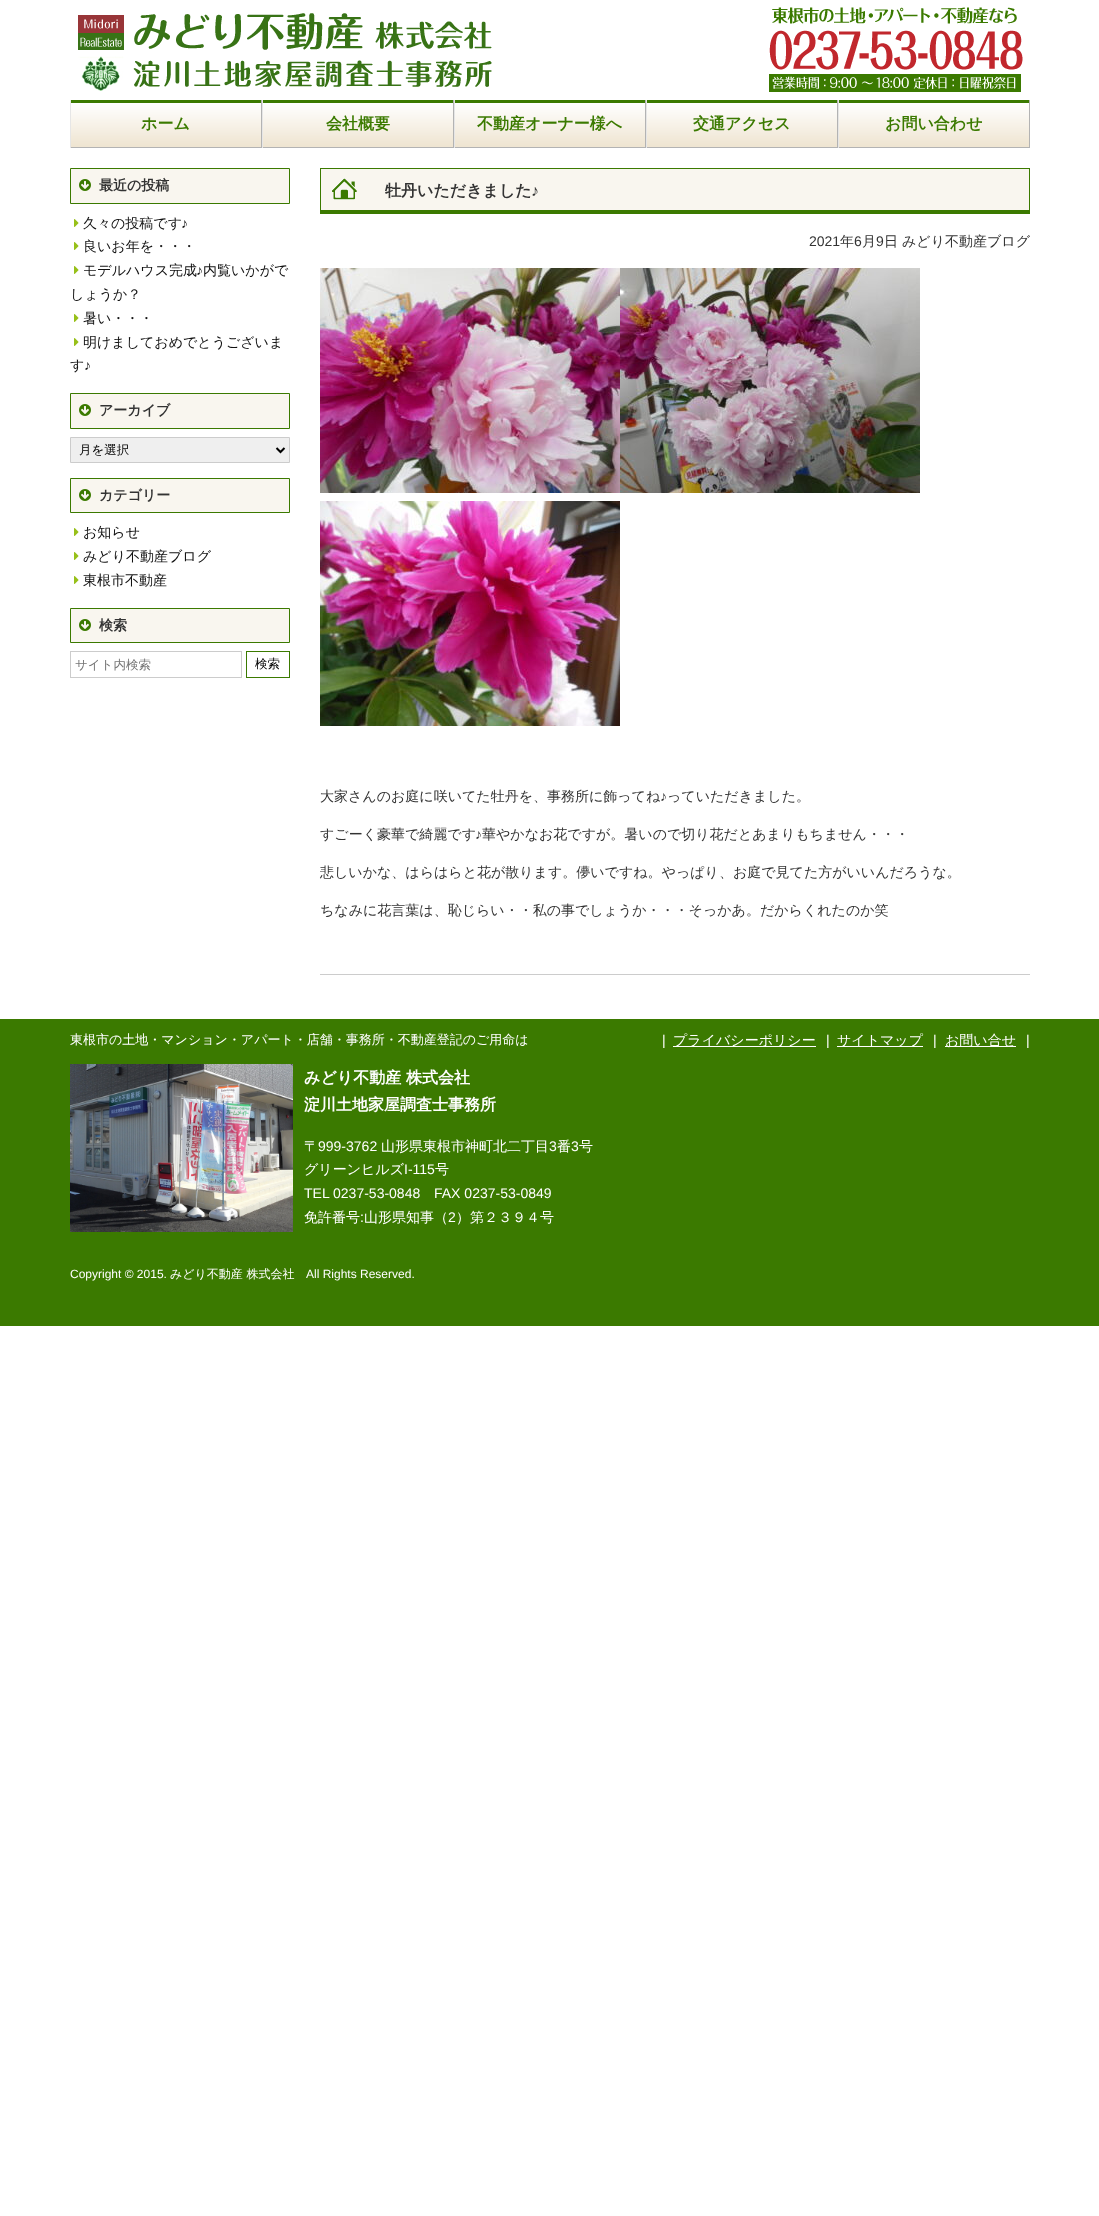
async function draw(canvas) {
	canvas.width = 1099;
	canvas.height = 2216;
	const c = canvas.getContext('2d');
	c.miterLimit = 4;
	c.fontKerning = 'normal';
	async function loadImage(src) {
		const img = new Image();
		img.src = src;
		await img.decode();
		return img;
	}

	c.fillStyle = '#fff';
	c.fillRect(0, 0, 1099, 2216);
	c.drawImage(await loadImage('img1.png'), 78, 13, 414, 78);
	c.drawImage(await loadImage('img2.png'), 769, 7, 254, 85);
	c.drawImage(await loadImage('img3.png'), 70, 100, 192, 48);
	c.font = 'bold 16px WenQuanYi Zen Hei';
	c.fillStyle = '#3b7a00';
	c.fillText('ホーム', 141, 129);
	c.drawImage(await loadImage('img3.png'), 262, 100, 192, 48);
	c.fillText('会社概要', 326, 129);
	c.drawImage(await loadImage('img3.png'), 454, 100, 192, 48);
	c.fillText('不動産オーナー様へ', 477, 129);
	c.drawImage(await loadImage('img3.png'), 646, 100, 192, 48);
	c.fillText('交通アクセス', 693, 129);
	c.drawImage(await loadImage('img3.png'), 838, 100, 192, 48);
	c.fillText('お問い合わせ', 885, 129);
	c.fillStyle = '#f9f6ef';
	c.beginPath();
	c.rect(70.5, 168.5, 219, 35);
	c.fill();
	c.strokeStyle = '#3b7a00';
	c.stroke();
	c.drawImage(await loadImage('img4.png'), 79, 179, 12, 12);
	c.font = 'bold 14px WenQuanYi Zen Hei';
	c.fillStyle = '#333';
	c.fillText('最近の投稿', 99, 190);
	c.drawImage(await loadImage('img5.png'), 74, 219, 5, 8);
	c.font = '500 14px WenQuanYi Zen Hei';
	c.fillStyle = '#111';
	c.fillText('久々の投稿です', 83, 228);
	c.font = '14px Liberation Sans';
	c.fillText('♪', 181, 228);
	c.drawImage(await loadImage('img5.png'), 74, 242, 5, 8);
	c.font = '500 14px WenQuanYi Zen Hei';
	c.fillText('良いお年を・・・', 83, 251);
	c.fillText('モデルハウス完成', 83, 275);
	c.font = '14px Liberation Sans';
	c.fillText('♪', 196, 275);
	c.font = '500 14px WenQuanYi Zen Hei';
	c.fillText('内覧いかがで', 203, 275);
	c.fillText('しょうか？', 70, 299);
	c.drawImage(await loadImage('img5.png'), 74, 266, 5, 8);
	c.drawImage(await loadImage('img5.png'), 74, 314, 5, 8);
	for (const [text, x, y] of [
		['暑い・・・', 83, 323],
		['明けましておめでとうございま', 83, 347],
		['す', 70, 370],
	]) {
		c.fillText(text, x, y);
	}
	c.font = '14px Liberation Sans';
	c.fillText('♪', 84, 370);
	c.drawImage(await loadImage('img5.png'), 74, 338, 5, 8);
	c.fillStyle = '#f9f6ef';
	c.beginPath();
	c.rect(70.5, 393.5, 219, 35);
	c.fill();
	c.stroke();
	c.drawImage(await loadImage('img4.png'), 79, 404, 12, 12);
	c.font = 'bold 14px WenQuanYi Zen Hei';
	c.fillStyle = '#333';
	c.fillText('アーカイブ', 99, 415);
	c.fillStyle = '#efefef';
	c.beginPath();
	c.rect(70.5, 437.5, 219, 25);
	c.fill();
	c.strokeStyle = '#ccc';
	c.stroke();
	c.beginPath();
	c.moveTo(276.5, 448);
	c.lineTo(280.5, 452);
	c.lineTo(284.5, 448);
	c.strokeStyle = '#000';
	c.lineWidth = 2;
	c.stroke();
	c.font = '500 12.5px WenQuanYi Zen Hei';
	c.fillStyle = '#000';
	c.fillText('月を選択', 79, 454);
	c.fillStyle = '#f9f6ef';
	c.beginPath();
	c.rect(70.5, 478.5, 219, 34);
	c.fill();
	c.strokeStyle = '#3b7a00';
	c.lineWidth = 1;
	c.stroke();
	c.drawImage(await loadImage('img4.png'), 79, 489, 12, 12);
	c.font = 'bold 14px WenQuanYi Zen Hei';
	c.fillStyle = '#333';
	c.fillText('カテゴリー', 99, 500);
	c.drawImage(await loadImage('img5.png'), 74, 528, 5, 8);
	c.font = '500 14px WenQuanYi Zen Hei';
	c.fillStyle = '#111';
	c.fillText('お知らせ', 83, 537);
	c.drawImage(await loadImage('img5.png'), 74, 552, 5, 8);
	c.fillText('みどり不動産ブログ', 83, 561);
	c.drawImage(await loadImage('img5.png'), 74, 576, 5, 8);
	c.fillText('東根市不動産', 83, 585);
	c.fillStyle = '#f9f6ef';
	c.beginPath();
	c.rect(70.5, 608.5, 219, 34);
	c.fill();
	c.stroke();
	c.drawImage(await loadImage('img4.png'), 79, 619, 12, 12);
	c.font = 'bold 14px WenQuanYi Zen Hei';
	c.fillStyle = '#333';
	c.fillText('検索', 99, 630);
	c.strokeStyle = '#ccc';
	c.strokeRect(70.5, 651.5, 171, 26);
	c.font = '500 12.5px WenQuanYi Zen Hei';
	c.fillStyle = '#757575';
	c.fillText('サイト内検索', 75, 669);
	c.strokeStyle = '#3b7a00';
	c.strokeRect(246.5, 651.5, 43, 26);
	c.fillStyle = '#000';
	c.fillText('検索', 255, 668);
	c.fillStyle = '#ccc';
	c.fillRect(320, 974, 710, 1);
	c.fillStyle = '#f9f6ef';
	c.fillRect(321, 169, 708, 41);
	c.drawImage(await loadImage('img6.png'), 332, 178, 25, 22);
	for (const [x, y, w, h, color] of [
		[320, 168, 710, 1, '#3b7a00'],
		[1029, 168, 1, 46, '#3b7a00'],
		[320, 210, 710, 4, '#3b7a00'],
		[320, 168, 1, 46, '#3b7a00'],
	]) {
		c.fillStyle = color;
		c.fillRect(x, y, w, h);
	}
	c.font = 'bold 16px WenQuanYi Zen Hei';
	c.fillStyle = '#333';
	c.fillText('牡丹いただきました', 385, 196);
	c.font = 'bold 16px Liberation Sans';
	c.fillText('♪', 531, 196);
	c.font = '14px Liberation Sans';
	c.fillText('2021', 809, 246);
	c.font = '500 14px WenQuanYi Zen Hei';
	c.fillText('年', 840, 246);
	c.font = '14px Liberation Sans';
	c.fillText('6', 854, 246);
	c.font = '500 14px WenQuanYi Zen Hei';
	c.fillText('月', 862, 246);
	c.font = '14px Liberation Sans';
	c.fillText('9', 876, 246);
	c.font = '500 14px WenQuanYi Zen Hei';
	c.fillText('日', 884, 246);
	c.fillText('みどり不動産ブログ', 902, 246);
	c.drawImage(await loadImage('img7.png'), 320, 268, 300, 225);
	c.drawImage(await loadImage('img8.png'), 620, 268, 300, 225);
	c.drawImage(await loadImage('img9.png'), 320, 501, 300, 225);
	c.fillText('大家さんのお庭に咲いてた牡丹を、事務所に飾ってね', 320, 801);
	c.font = '14px Liberation Sans';
	c.fillText('♪', 660, 801);
	c.font = '500 14px WenQuanYi Zen Hei';
	c.fillText('っていただきました。', 667, 801);
	c.fillText('すごーく豪華で綺麗です', 320, 839);
	c.font = '14px Liberation Sans';
	c.fillText('♪', 475, 839);
	c.font = '500 14px WenQuanYi Zen Hei';
	for (const [text, x, y] of [
		['華やかなお花ですが。暑いので切り花だとあまりもちません・・・', 482, 839],
		['悲しいかな、はらはらと花が散ります。儚いですね。やっぱり、お庭で見てた方がいいんだろうな。', 320, 877],
		['ちなみに花言葉は、恥じらい・・私の事でしょうか・・・そっかあ。だからくれたのか笑', 320, 915],
	]) {
		c.fillText(text, x, y);
	}
	c.fillStyle = '#3b7a00';
	c.fillRect(0, 1019, 1099, 307);
	c.font = '500 13px WenQuanYi Zen Hei';
	c.fillStyle = '#fff';
	c.fillText('東根市の土地・マンション・アパート・店舗・事務所・不動産登記のご用命は', 70, 1044);
	c.drawImage(await loadImage('img10.png'), 70, 1064, 223, 168);
	c.font = 'bold 16px WenQuanYi Zen Hei';
	c.fillText('みどり不動産 株式会社', 304, 1083);
	c.fillText('淀川土地家屋調査士事務所', 304, 1110);
	c.font = '500 14px WenQuanYi Zen Hei';
	c.fillText('〒', 304, 1151);
	c.font = '14px Liberation Sans';
	c.fillText('999-3762', 318, 1151);
	c.font = '500 14px WenQuanYi Zen Hei';
	c.fillText('山形県東根市神町北二丁目', 381, 1151);
	c.font = '14px Liberation Sans';
	c.fillText('3', 549, 1151);
	c.font = '500 14px WenQuanYi Zen Hei';
	c.fillText('番', 557, 1151);
	c.font = '14px Liberation Sans';
	c.fillText('3', 571, 1151);
	c.font = '500 14px WenQuanYi Zen Hei';
	c.fillText('号', 579, 1151);
	c.fillText('グリーンヒルズ', 304, 1174);
	c.font = '14px Liberation Sans';
	c.fillText('I-115', 404, 1174);
	c.font = '500 14px WenQuanYi Zen Hei';
	c.fillText('号', 435, 1174);
	c.font = '14px Liberation Sans';
	c.fillText('TEL 0237-53-0848', 304, 1198);
	c.fillText('FAX 0237-53-0849', 434, 1198);
	c.font = '500 14px WenQuanYi Zen Hei';
	c.fillText('免許番号', 304, 1222);
	c.font = '14px Liberation Sans';
	c.fillText(':', 360, 1222);
	c.font = '500 14px WenQuanYi Zen Hei';
	c.fillText('山形県知事（', 364, 1222);
	c.font = '14px Liberation Sans';
	c.fillText('2', 448, 1222);
	c.font = '500 14px WenQuanYi Zen Hei';
	c.fillText('）第２３９４号', 456, 1222);
	c.font = '12px Liberation Sans';
	c.fillText('Copyright © 2015.', 70, 1278);
	c.font = '500 12px WenQuanYi Zen Hei';
	c.fillText('みどり不動産 株式会社', 170, 1278);
	c.font = '12px Liberation Sans';
	c.fillText('All Rights Reserved.', 306, 1278);
	c.font = '14px Liberation Sans';
	c.fillText('|', 662, 1045);
	c.fillRect(673, 1046, 143, 1);
	c.font = '500 14px WenQuanYi Zen Hei';
	c.fillText('プライバシーポリシー', 673, 1045);
	c.font = '14px Liberation Sans';
	c.fillText('|', 826, 1045);
	c.fillRect(837, 1046, 86, 1);
	c.font = '500 14px WenQuanYi Zen Hei';
	c.fillText('サイトマップ', 837, 1045);
	c.font = '14px Liberation Sans';
	c.fillText('|', 933, 1045);
	c.fillRect(945, 1046, 71, 1);
	c.font = '500 14px WenQuanYi Zen Hei';
	c.fillText('お問い合せ', 945, 1045);
	c.font = '14px Liberation Sans';
	c.fillText('|', 1026, 1045);
}

draw(document.querySelector('canvas'));
